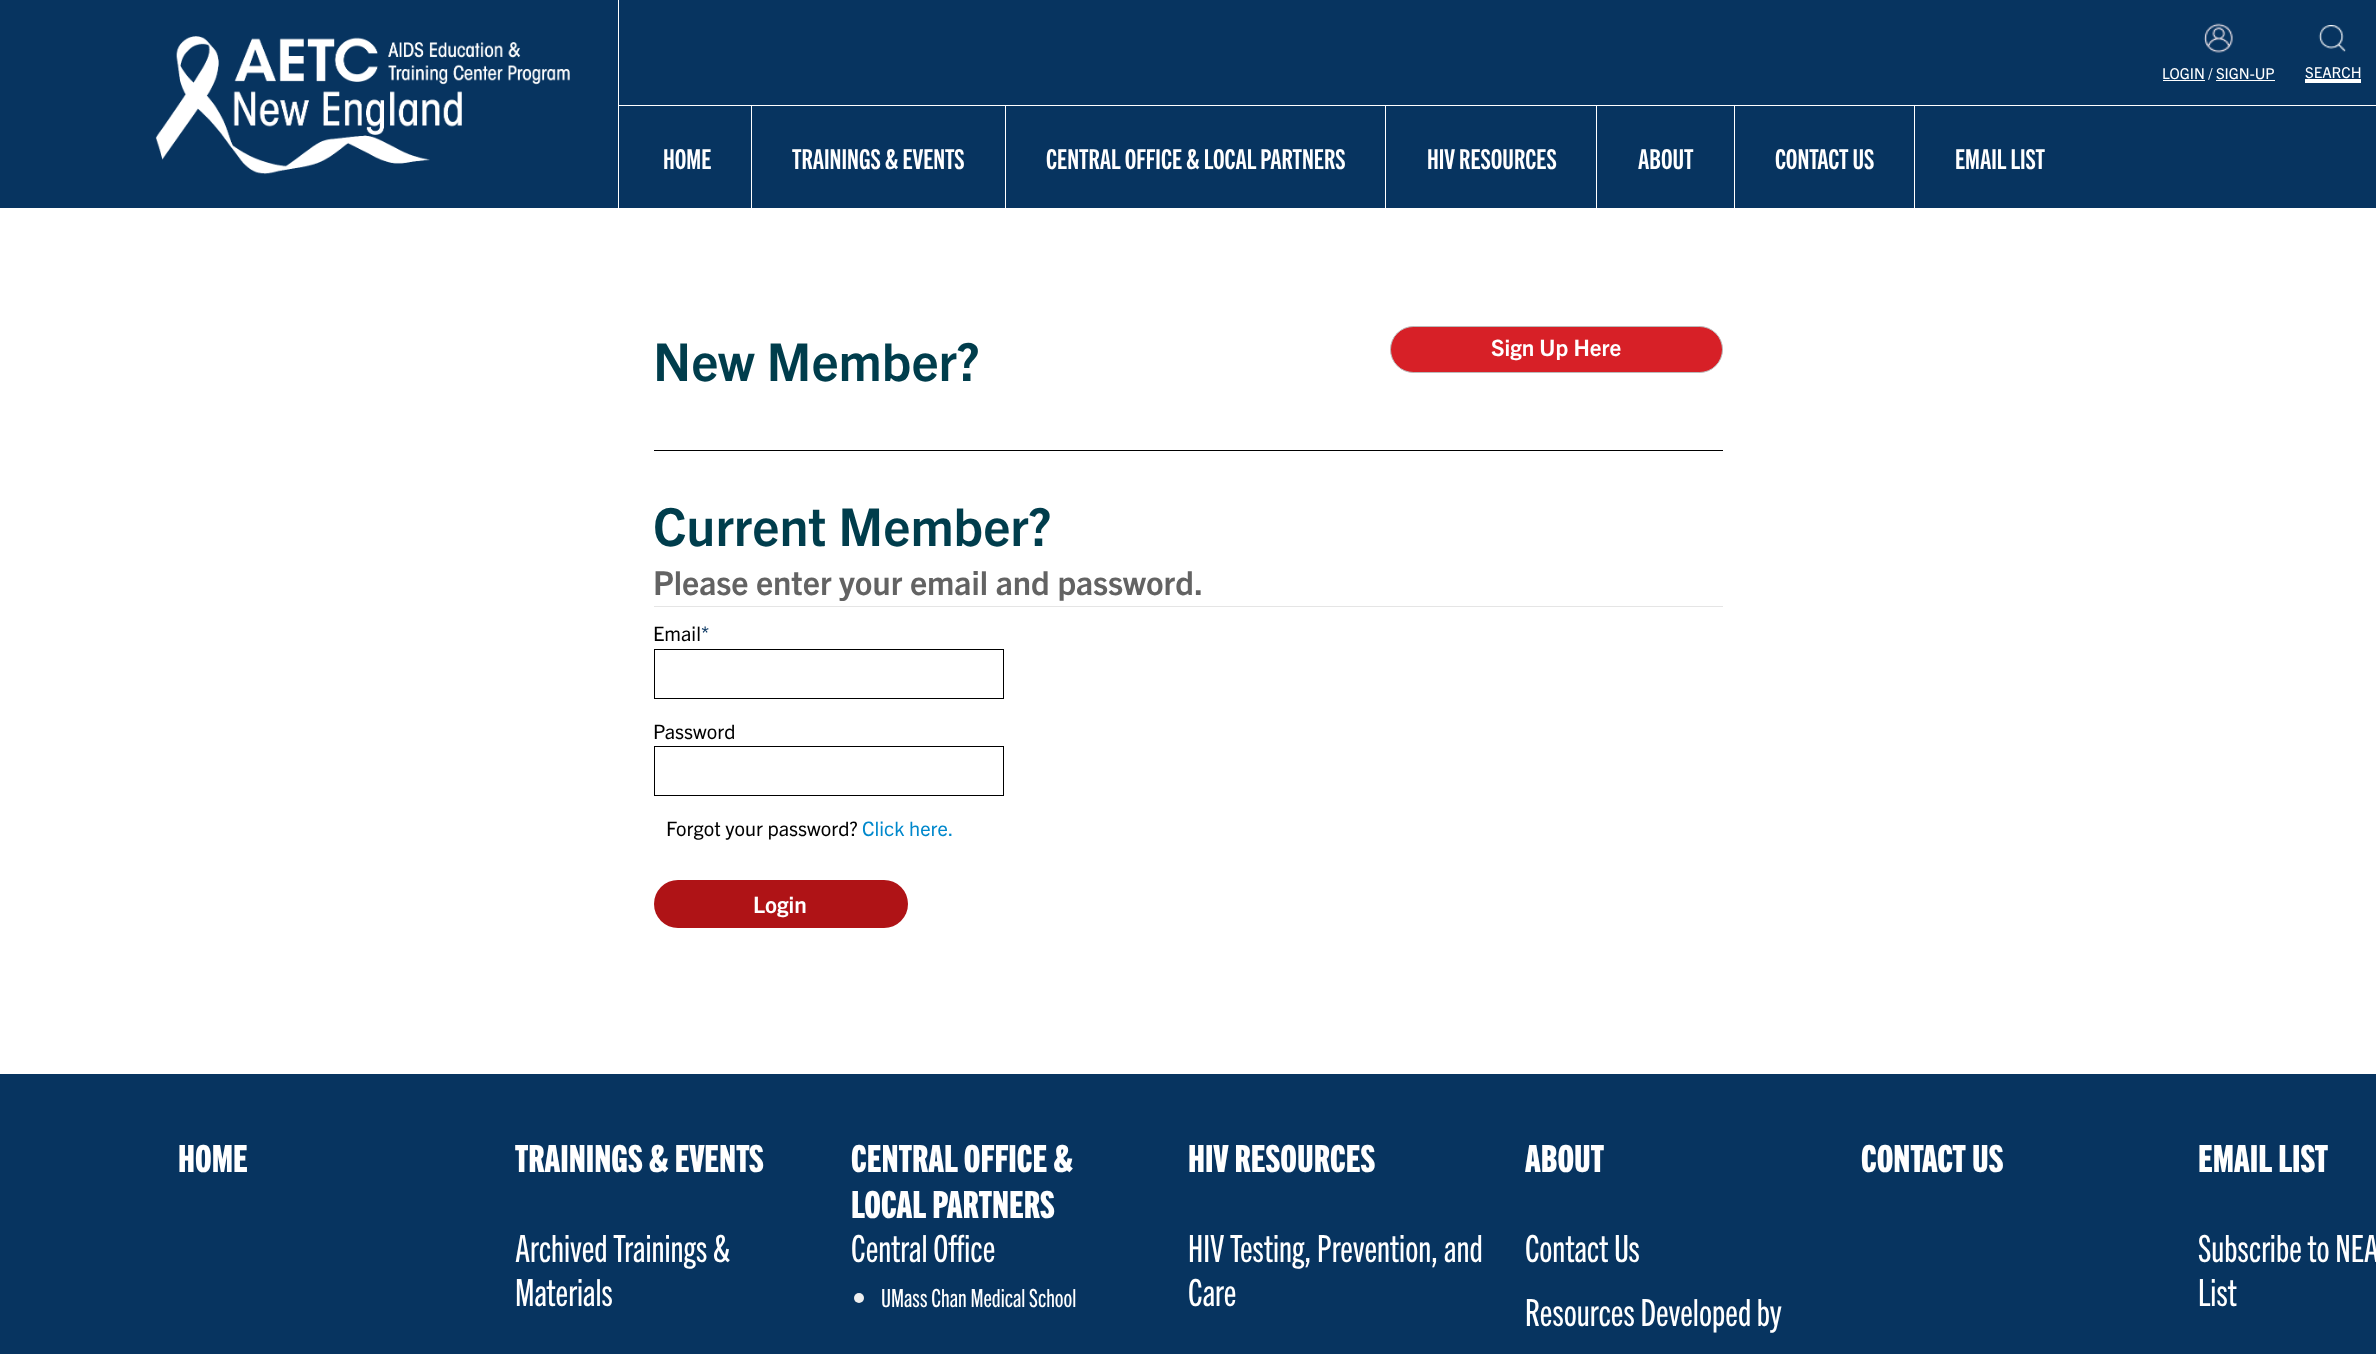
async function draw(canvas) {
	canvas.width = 2376;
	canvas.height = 1354;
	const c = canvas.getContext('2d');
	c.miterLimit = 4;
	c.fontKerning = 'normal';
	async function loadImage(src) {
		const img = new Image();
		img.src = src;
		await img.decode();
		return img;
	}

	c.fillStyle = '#073460';
	c.fillRect(0, 0, 2376, 1354);
	c.drawImage(await loadImage('img1.png'), 155, 36, 415, 139);
	c.fillStyle = '#fff';
	c.fillRect(618, 0, 1, 208);
	c.drawImage(await loadImage('img2.png'), 2203, 23, 30, 30);
	c.font = '15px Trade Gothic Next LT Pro';
	c.fillText('LOGIN / SIGN-UP', 2162, 79);
	c.fillRect(2163, 80, 42, 1);
	c.fillRect(2216, 80, 59, 1);
	c.drawImage(await loadImage('img3.png'), 2318, 25, 28, 27);
	c.fillText('SEARCH', 2305, 78);
	c.fillRect(2305, 79, 56, 4);
	c.fillRect(619, 105, 1757, 1);
	c.font = 'bold 27.5px Trade Gothic Next LT Pro';
	c.fillText('HOME', 663, 169);
	c.fillRect(751, 106, 1, 103);
	c.fillText('TRAININGS & EVENTS', 792, 169);
	c.fillRect(1005, 106, 1, 103);
	c.fillText('CENTRAL OFFICE & LOCAL PARTNERS', 1046, 169);
	c.fillRect(1385, 106, 1, 103);
	c.fillText('HIV RESOURCES', 1427, 169);
	c.fillRect(1596, 106, 1, 103);
	c.fillText('ABOUT', 1638, 169);
	c.fillRect(1734, 106, 1, 103);
	c.fillText('CONTACT US', 1775, 169);
	c.fillRect(1914, 106, 1, 103);
	c.fillText('EMAIL LIST', 1955, 169);
	c.fillRect(0, 208, 2376, 866);
	c.fillStyle = '#000';
	c.fillRect(654, 450, 1069, 1);
	c.font = 'bold 52.25px "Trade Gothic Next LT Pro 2"';
	c.fillStyle = '#003d4c';
	c.fillText('New Member?', 653, 381);
	c.fillStyle = '#d72027';
	c.beginPath();
	c.roundRect(1390.5, 326.5, 332, 46, 23);
	c.fill();
	c.strokeStyle = '#bbb';
	c.stroke();
	c.font = 'bold 22.5px "Trade Gothic Next LT Pro 2"';
	c.fillStyle = '#fff';
	c.fillText('Sign Up Here', 1491, 356);
	c.font = 'bold 52.25px "Trade Gothic Next LT Pro 2"';
	c.fillStyle = '#003d4c';
	c.fillText('Current Member?', 653, 546);
	c.fillStyle = '#e5e5e5';
	c.fillRect(654, 606, 1069, 1);
	c.font = 'bold 33px "Trade Gothic Next LT Pro 2"';
	c.fillStyle = '#636363';
	c.fillText('Please enter your email and password.', 653, 595);
	c.font = '20px Trade Gothic Next LT Pro';
	c.fillStyle = '#000';
	c.fillText('Email', 653, 641);
	c.fillStyle = '#073460';
	c.fillText('*', 701, 641);
	c.strokeStyle = '#000';
	c.strokeRect(654.5, 649.5, 349, 49);
	c.fillStyle = '#000';
	c.fillText('Password', 653, 739);
	c.strokeRect(654.5, 746.5, 349, 49);
	c.fillText('Forgot your password?', 666, 836);
	c.fillStyle = '#08c';
	c.fillText('Click here.', 862, 836);
	c.fillStyle = '#af1316';
	c.beginPath();
	c.roundRect(654, 880, 254, 48, 24);
	c.fill();
	c.font = 'bold 22.5px "Trade Gothic Next LT Pro 2"';
	c.fillStyle = '#fff';
	c.fillText('Login', 753, 913);
	c.font = '800 37.5px Trade Gothic Next LT Pro';
	c.fillText('HOME', 178, 1172);
	c.fillText('TRAININGS & EVENTS', 515, 1172);
	c.font = '37.5px "Trade Gothic Next LT Pro 2"';
	c.fillText('Archived Trainings &', 515, 1262);
	c.fillText('Materials', 515, 1306);
	c.font = '800 37.5px Trade Gothic Next LT Pro';
	c.fillText('CENTRAL OFFICE &', 851, 1172);
	c.fillText('LOCAL PARTNERS', 851, 1218);
	c.font = '37.5px "Trade Gothic Next LT Pro 2"';
	c.fillText('Central Office', 851, 1262);
	c.fillStyle = '#efefef';
	c.beginPath();
	c.arc(859, 1298, 5, 0, 2 * Math.PI);
	c.fill();
	c.font = '25px "Trade Gothic Next LT Pro 2"';
	c.fillStyle = '#fff';
	c.fillText('UMass Chan Medical School', 881, 1307);
	c.font = '800 37.5px Trade Gothic Next LT Pro';
	c.fillText('HIV RESOURCES', 1188, 1172);
	c.font = '37.5px "Trade Gothic Next LT Pro 2"';
	c.fillText('HIV Testing, Prevention, and', 1188, 1262);
	c.fillText('Care', 1188, 1306);
	c.font = '800 37.5px Trade Gothic Next LT Pro';
	c.fillText('ABOUT', 1525, 1172);
	c.font = '37.5px "Trade Gothic Next LT Pro 2"';
	c.fillText('Contact Us', 1525, 1262);
	c.fillText('Resources Developed by', 1525, 1326);
	c.font = '800 37.5px Trade Gothic Next LT Pro';
	c.fillText('CONTACT US', 1861, 1172);
	c.fillText('EMAIL LIST', 2198, 1172);
	c.font = '37.5px "Trade Gothic Next LT Pro 2"';
	c.fillText('Subscribe to NEA', 2198, 1262);
	c.fillText('List', 2198, 1306);
}

draw(document.querySelector('canvas'));
